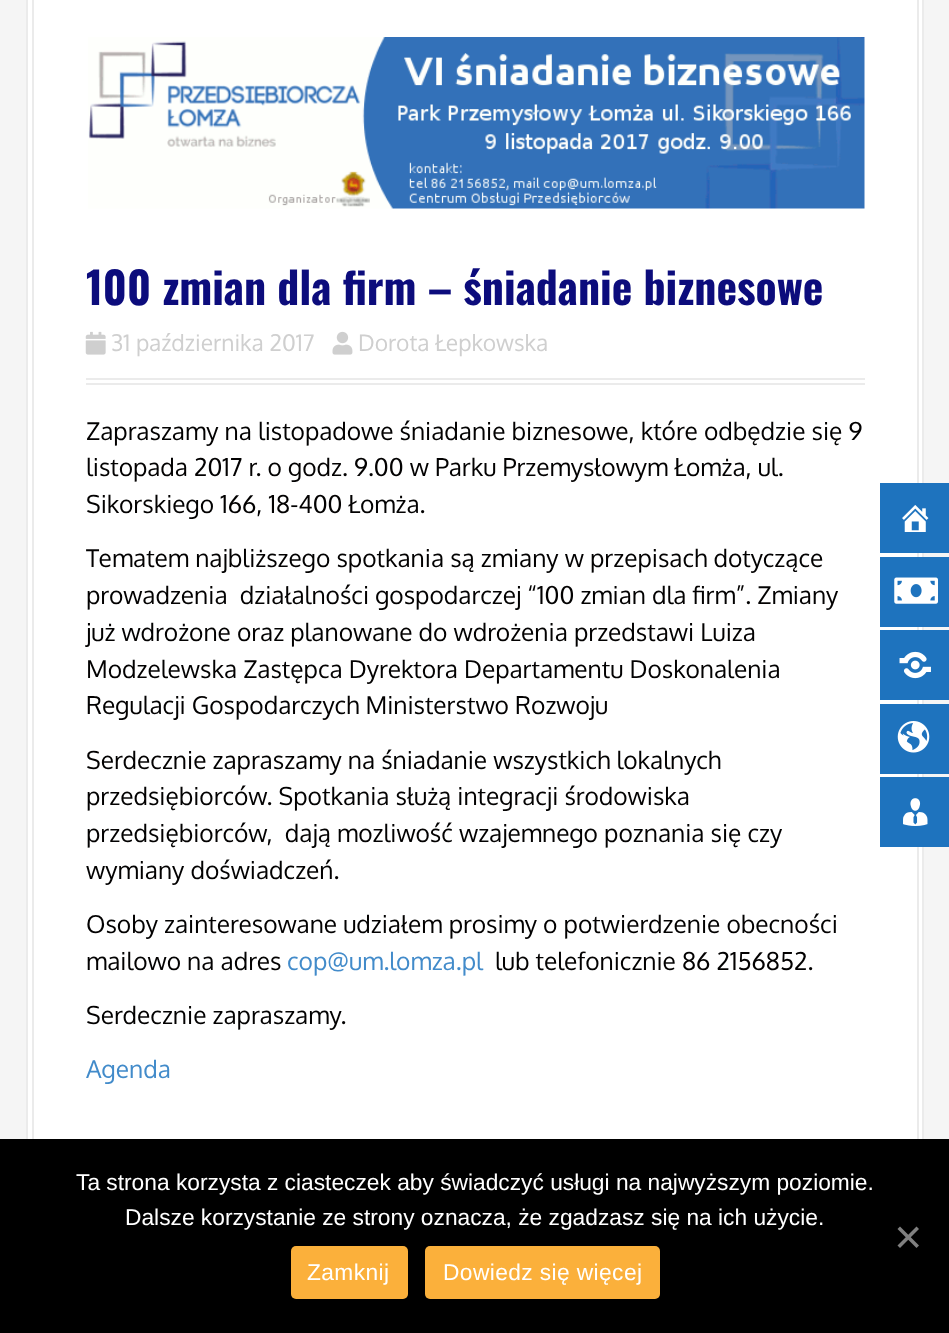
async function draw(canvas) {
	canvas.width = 949;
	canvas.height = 1333;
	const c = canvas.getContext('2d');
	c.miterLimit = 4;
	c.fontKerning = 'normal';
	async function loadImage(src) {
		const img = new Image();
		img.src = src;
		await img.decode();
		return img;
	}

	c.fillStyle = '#f5f5f5';
	c.fillRect(0, 0, 949, 1333);
	c.fillStyle = '#fff';
	c.fillRect(28, 0, 894, 1139);
	c.strokeStyle = '#ebebeb';
	c.lineWidth = 2;
	c.strokeRect(27, -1, 896, 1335);
	c.strokeRect(33, -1, 885, 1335);
	c.drawImage(await loadImage('img1.png'), 88, 37, 777, 172);
	c.fillStyle = '#ebebeb';
	c.fillRect(86, 378, 779, 2);
	c.fillRect(86, 383, 779, 2);
	c.font = 'bold 43.75px Oswald';
	c.fillStyle = '#0c0c7c';
	c.fillText('100 zmian dla firm – śniadanie biznesowe', 86, 305);
	c.drawImage(await loadImage('img2.png'), 85, 331, 21, 24);
	c.font = '22.75px Oxygen';
	c.fillStyle = '#cfcfcf';
	c.fillText('31 października 2017', 111, 351);
	c.drawImage(await loadImage('img3.png'), 332, 331, 21, 24);
	c.fillText('Dorota Łepkowska', 358, 351);
	c.font = '24.5px Oxygen';
	c.fillStyle = '#020101';
	for (const [text, x, y] of [
		['Zapraszamy na listopadowe śniadanie biznesowe, które odbędzie się 9', 86, 440],
		['listopada 2017 r. o godz. 9.00 w Parku Przemysłowym Łomża, ul.', 86, 476],
		['Sikorskiego 166, 18-400 Łomża.', 86, 513],
		['Tematem najbliższego spotkania są zmiany w przepisach dotyczące', 86, 567],
		['prowadzenia  działalności gospodarczej “100 zmian dla firm”. Zmiany', 86, 604],
		['już wdrożone oraz planowane do wdrożenia przedstawi Luiza', 86, 641],
		['Modzelewska Zastępca Dyrektora Departamentu Doskonalenia', 86, 678],
		['Regulacji Gospodarczych Ministerstwo Rozwoju', 86, 714],
		['Serdecznie zapraszamy na śniadanie wszystkich lokalnych', 86, 769],
		['przedsiębiorców. Spotkania służą integracji środowiska', 86, 805],
		['przedsiębiorców,  dają mozliwość wzajemnego poznania się czy', 86, 842],
		['wymiany doświadczeń.', 86, 879],
		['Osoby zainteresowane udziałem prosimy o potwierdzenie obecności', 86, 933],
		['mailowo na adres', 86, 970],
	]) {
		c.fillText(text, x, y);
	}
	c.fillStyle = '#428bca';
	c.fillText('cop@um.lomza.pl', 287, 970);
	c.fillStyle = '#020101';
	c.fillText('lub telefonicznie 86 2156852.', 495, 970);
	c.fillText('Serdecznie zapraszamy.', 86, 1024);
	c.fillStyle = '#428bca';
	c.fillText('Agenda', 86, 1078);
	c.fillStyle = '#1e73be';
	c.fillRect(880, 483, 69, 70);
	c.drawImage(await loadImage('img4.png'), 902, 505, 27, 27);
	c.fillRect(880, 557, 69, 70);
	c.drawImage(await loadImage('img5.png'), 894, 577, 44, 27);
	c.fillRect(880, 630, 69, 70);
	c.drawImage(await loadImage('img6.png'), 899, 651, 32, 28);
	c.fillRect(880, 704, 69, 70);
	c.drawImage(await loadImage('img7.png'), 897, 721, 33, 32);
	c.fillRect(880, 777, 69, 70);
	c.drawImage(await loadImage('img8.png'), 903, 798, 25, 28);
	c.fillStyle = '#000';
	c.fillRect(0, 1139, 949, 194);
	c.font = '22.75px Liberation Sans';
	c.fillStyle = '#fff';
	c.fillText('Ta strona korzysta z ciasteczek aby świadczyć usługi na najwyższym poziomie.', 76, 1190);
	c.fillText('Dalsze korzystanie ze strony oznacza, że zgadzasz się na ich użycie.', 125, 1225);
	c.fillStyle = '#808080';
	c.beginPath();
	c.moveTo(916.5, 1226.5);
	c.lineTo(919, 1229);
	c.lineTo(900, 1248);
	c.lineTo(897.5, 1245.5);
	c.closePath();
	c.fill();
	c.beginPath();
	c.moveTo(897.5, 1229);
	c.lineTo(900, 1226.5);
	c.lineTo(919, 1245.5);
	c.lineTo(916.5, 1248);
	c.closePath();
	c.fill();
	c.fillStyle = '#fbb03b';
	c.beginPath();
	c.roundRect(291, 1246, 117, 53, 5);
	c.fill();
	c.letterSpacing = '0.4px';
	c.fillStyle = '#fff';
	c.fillText('Zamknij', 307, 1280);
	c.fillStyle = '#fbb03b';
	c.beginPath();
	c.roundRect(425, 1246, 235, 53, 5);
	c.fill();
	c.fillStyle = '#fff';
	c.fillText('Dowiedz się więcej', 443, 1280);
}

draw(document.querySelector('canvas'));
